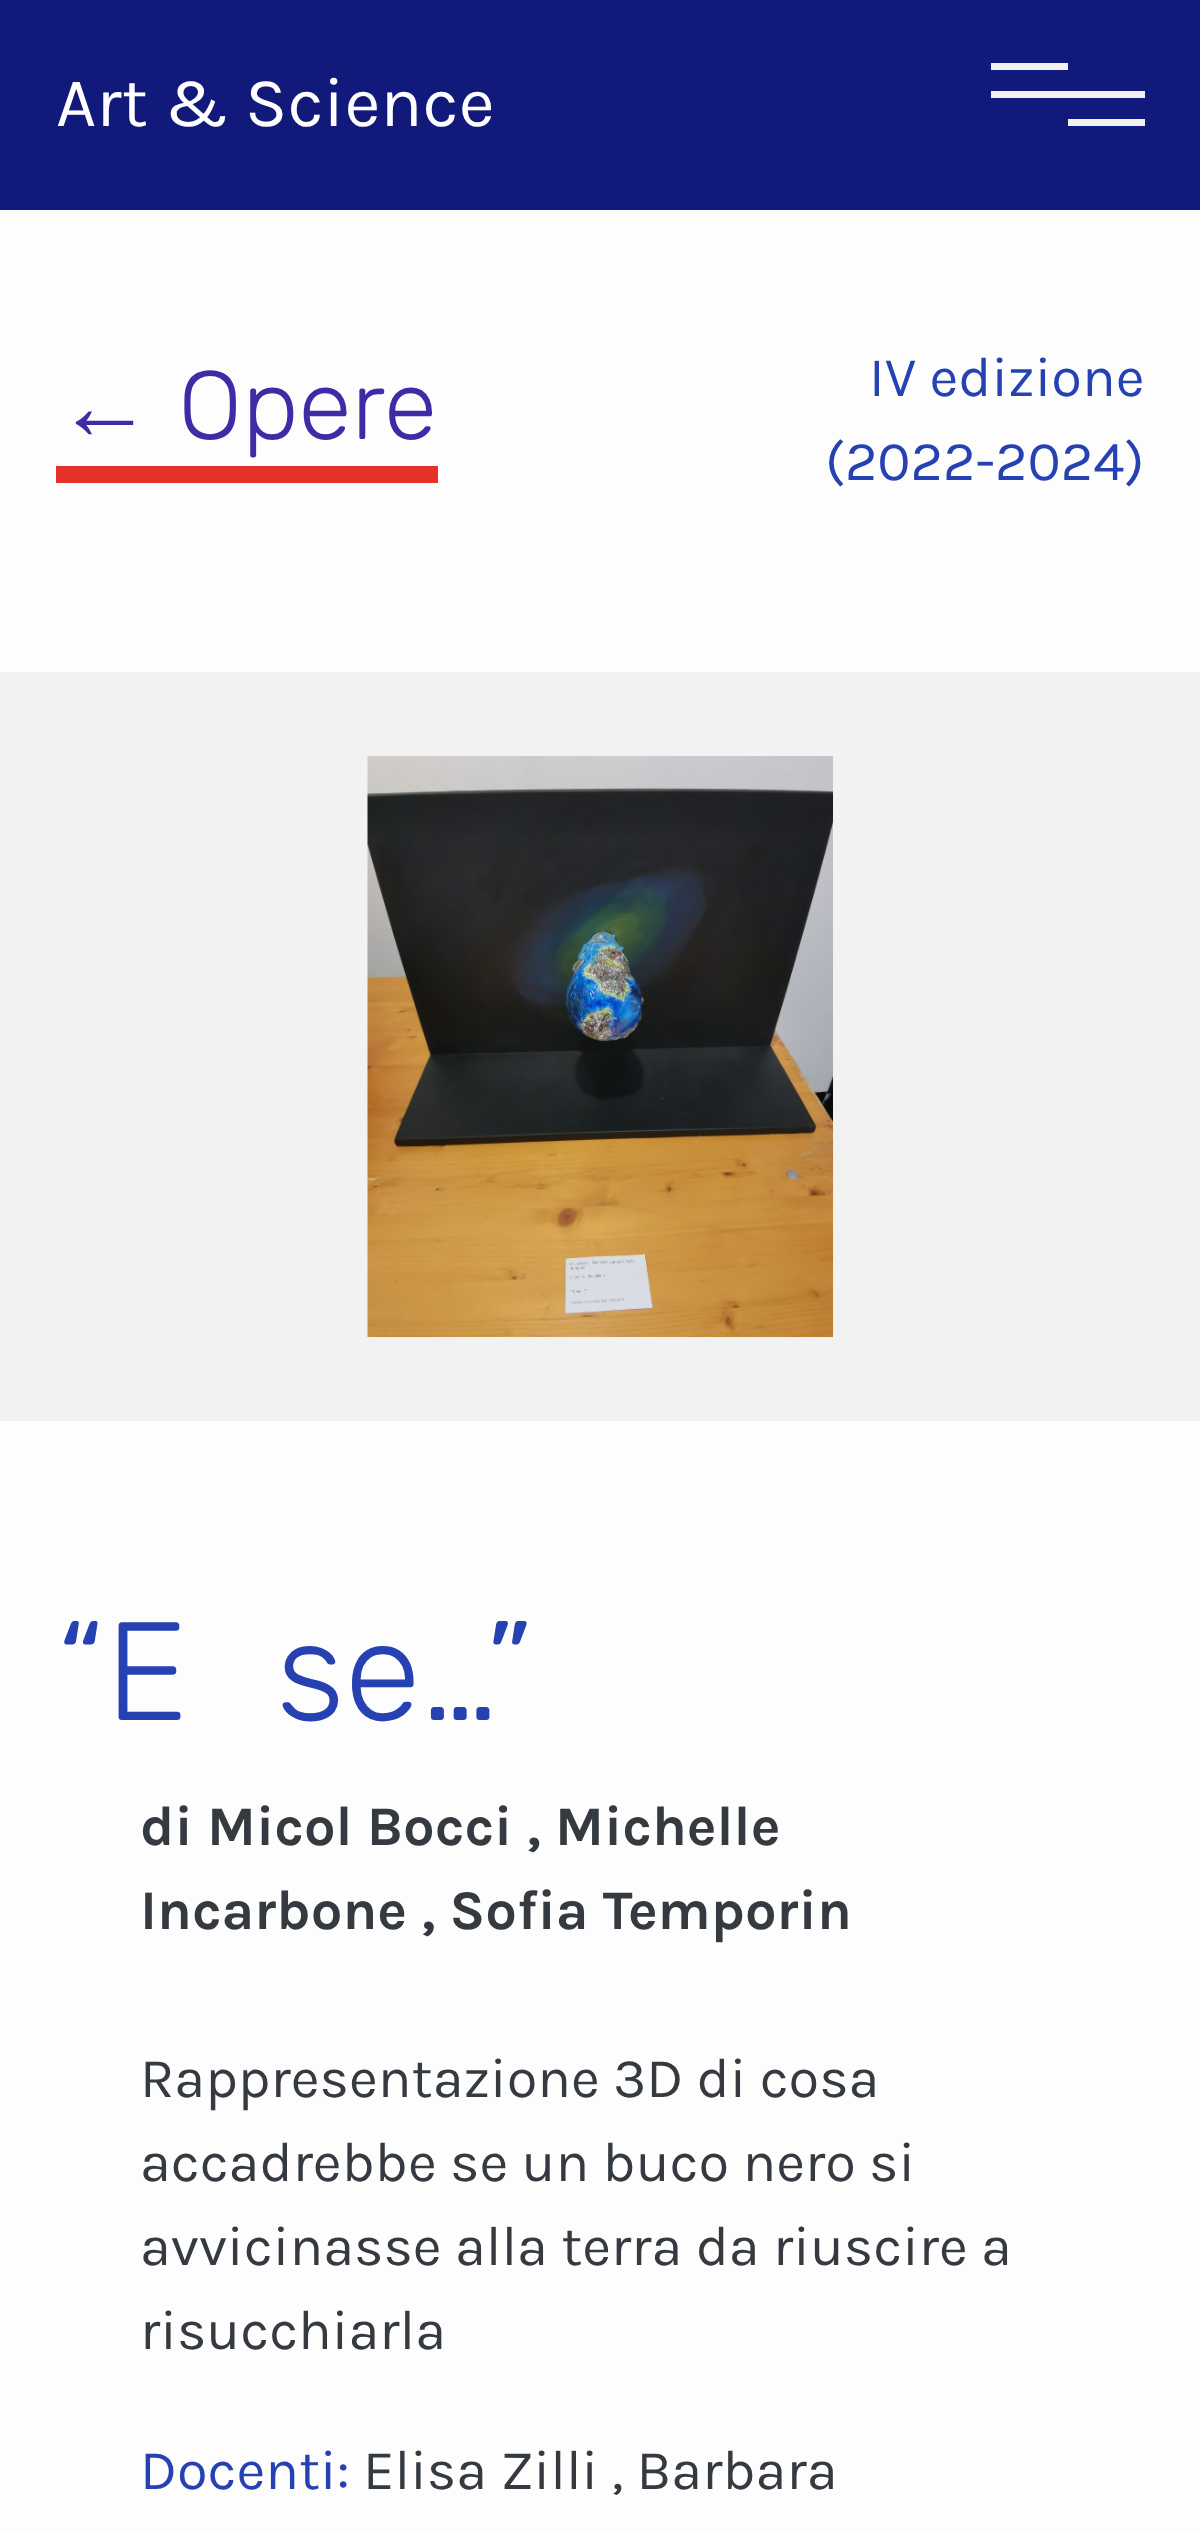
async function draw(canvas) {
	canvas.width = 1200;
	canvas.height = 2533;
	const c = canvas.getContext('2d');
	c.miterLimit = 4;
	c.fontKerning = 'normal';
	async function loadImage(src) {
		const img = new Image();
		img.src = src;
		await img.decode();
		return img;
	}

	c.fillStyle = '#fdfdfd';
	c.fillRect(0, 0, 1200, 2533);
	c.fillStyle = '#11197a';
	c.fillRect(0, 0, 1200, 210);
	c.font = '70px Karla';
	c.fillStyle = '#fff';
	c.fillText('Art & Science', 56, 126);
	for (const [x, y, w, h, color] of [
		[991, 63, 77, 7, '#f2f2f2'],
		[991, 91, 154, 7, '#f2f2f2'],
		[1068, 119, 77, 7, '#f2f2f2'],
	]) {
		c.fillStyle = color;
		c.fillRect(x, y, w, h);
	}
	c.font = '97px Liberation Sans';
	c.fillStyle = '#3e2ca7';
	c.fillText('←', 56, 439);
	c.font = '300 97px Rubik';
	c.fillText('Opere', 178, 439);
	c.fillStyle = '#e6332a';
	c.fillRect(56, 466, 382, 17);
	c.font = '56px Karla';
	c.fillStyle = '#2541b2';
	c.fillText('IV edizione', 869, 396);
	c.fillText('(2022-2024)', 825, 480);
	c.fillStyle = '#f2f2f2';
	c.fillRect(0, 672, 1200, 749);
	c.drawImage(await loadImage('img1.png'), 367, 756, 466, 581);
	c.wordSpacing = '52px';
	c.font = '300 139.5px Rubik';
	c.fillStyle = '#2541b2';
	c.fillText('“E se…”', 56, 1720);
	c.wordSpacing = '0px';
	c.font = 'bold 56px Karla';
	c.fillStyle = '#343a40';
	c.fillText('di Micol Bocci , Michelle', 140, 1845);
	c.fillText('Incarbone , Sofia Temporin', 140, 1929);
	c.font = '56px Karla';
	for (const [text, x, y] of [
		['Rappresentazione 3D di cosa', 140, 2097],
		['accadrebbe se un buco nero si', 140, 2181],
		['avvicinasse alla terra da riuscire a', 140, 2265],
		['risucchiarla', 140, 2349],
	]) {
		c.fillText(text, x, y);
	}
	c.fillStyle = '#2541b2';
	c.fillText('Docenti:', 140, 2489);
	c.fillStyle = '#343a40';
	c.fillText('Elisa Zilli , Barbara', 363, 2489);
}

draw(document.querySelector('canvas'));
